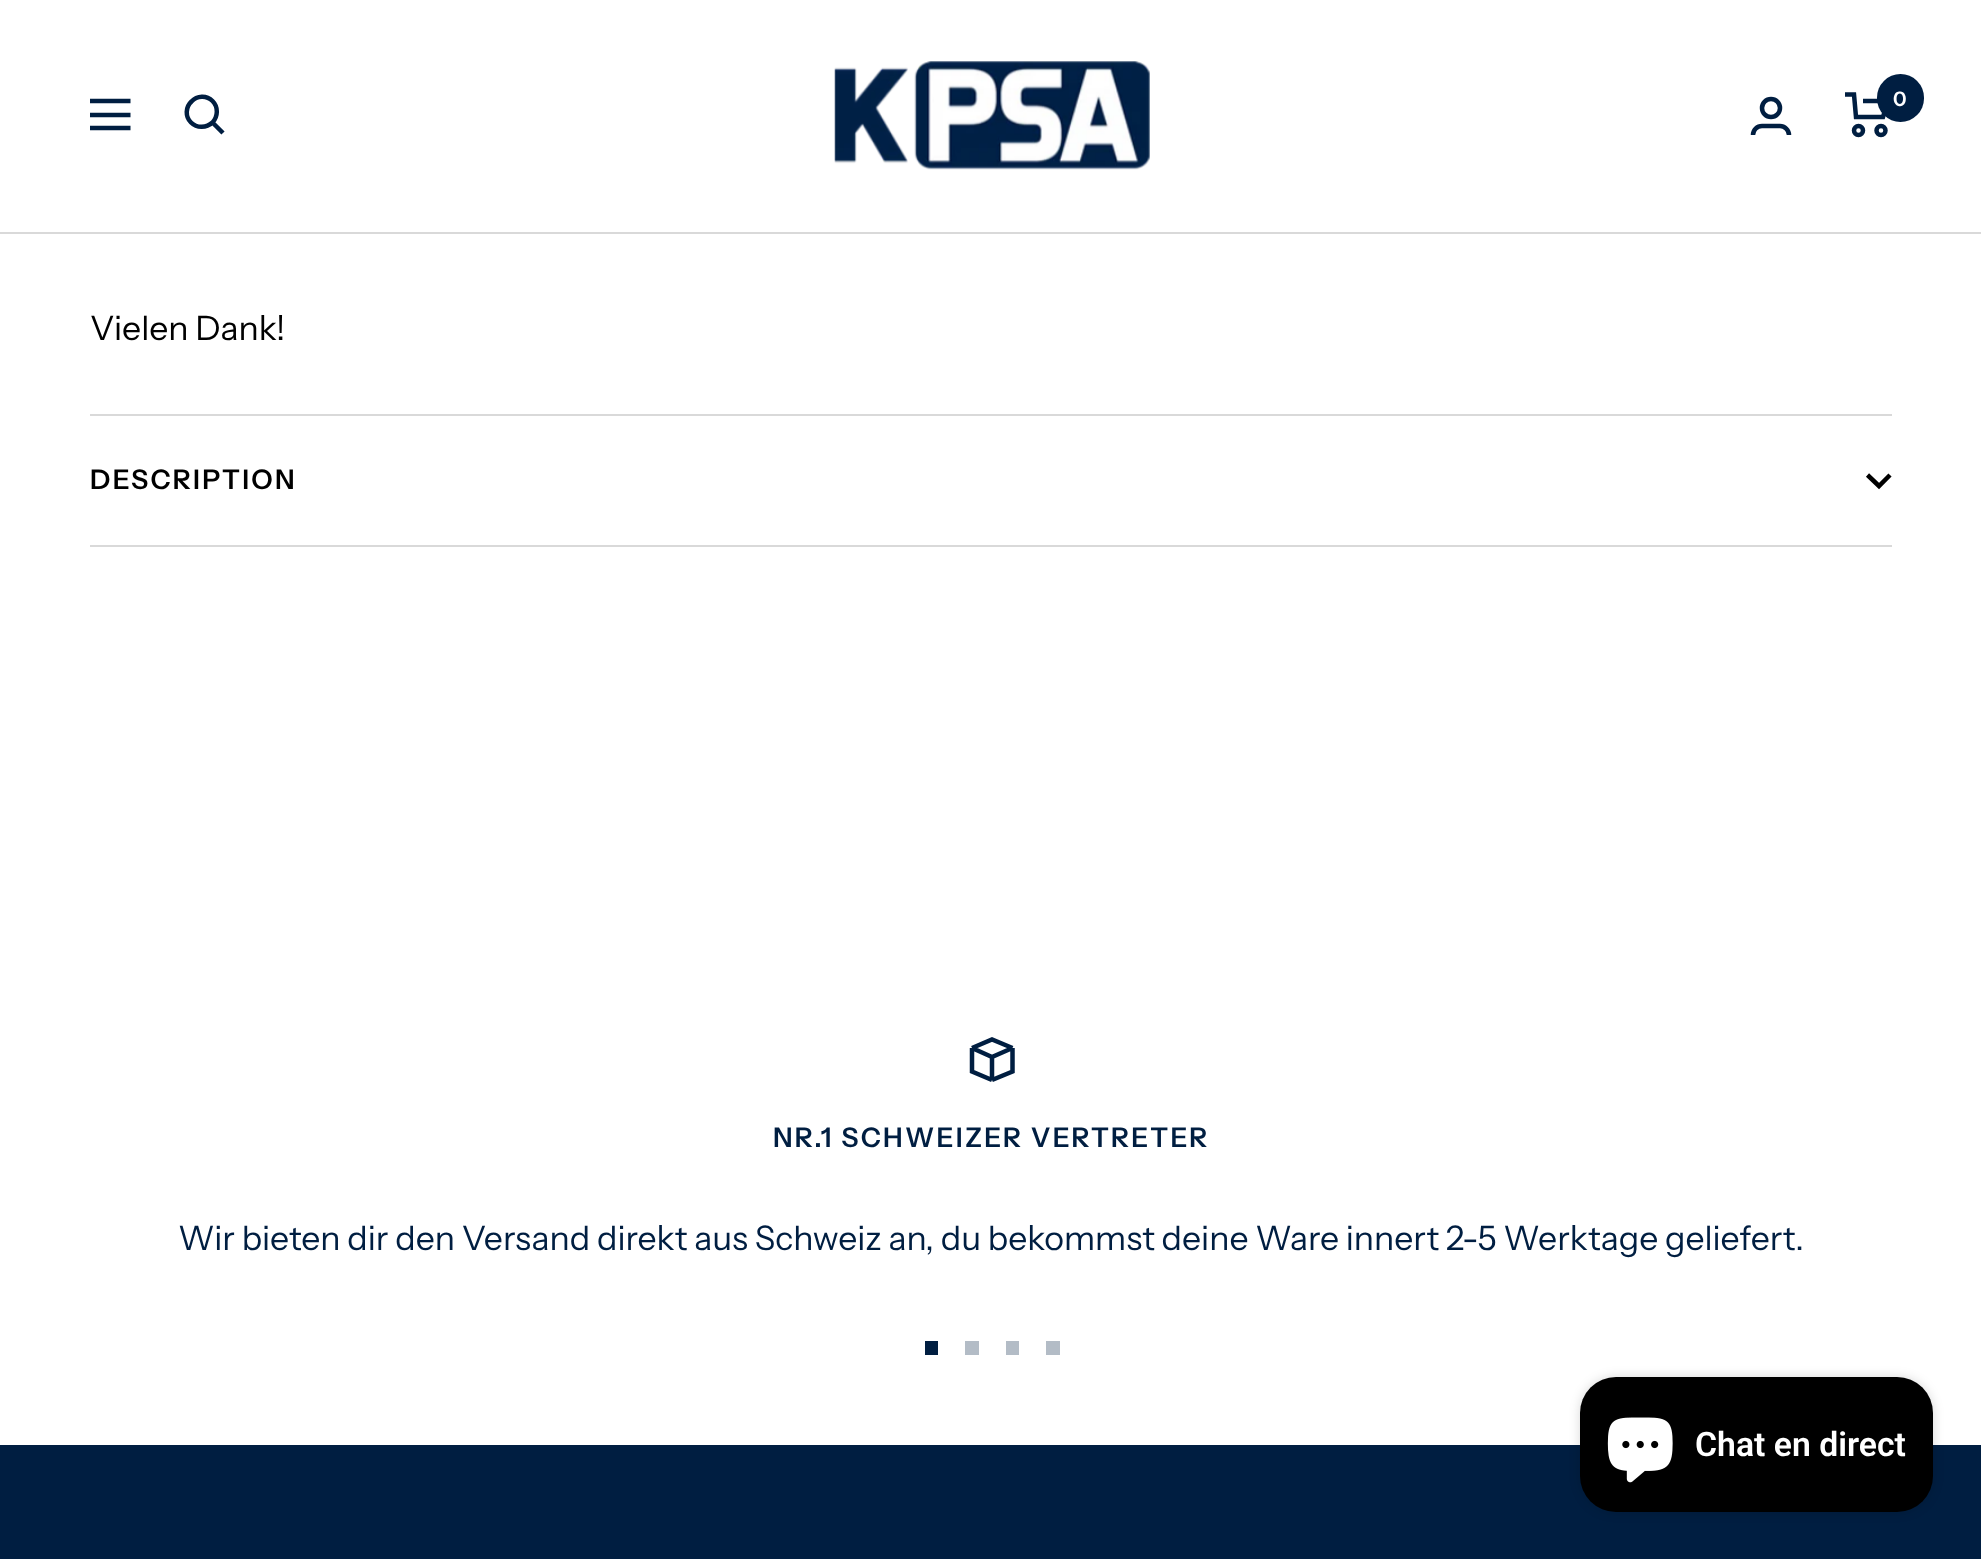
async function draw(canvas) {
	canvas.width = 1981;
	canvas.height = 1559;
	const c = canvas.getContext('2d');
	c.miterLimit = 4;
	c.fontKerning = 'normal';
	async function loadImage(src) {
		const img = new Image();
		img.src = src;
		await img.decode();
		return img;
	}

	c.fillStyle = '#fff';
	c.fillRect(0, 0, 1981, 1559);
	c.fillStyle = '#d9d9d9';
	c.fillRect(0, 232, 1981, 2);
	c.beginPath();
	c.moveTo(90, 101);
	c.lineTo(130.5, 101);
	c.moveTo(90, 128);
	c.lineTo(130.5, 128);
	c.closePath();
	c.moveTo(90, 115);
	c.lineTo(130.5, 115);
	c.closePath();
	c.strokeStyle = '#001e41';
	c.lineWidth = 4.5;
	c.stroke();
	c.beginPath();
	c.moveTo(212.5, 122.5);
	c.bezierCurveTo(218, 116.5, 218.5, 107, 212.5, 101);
	c.bezierCurveTo(206.5, 95, 197, 95.5, 191.5, 101.5);
	c.bezierCurveTo(185.5, 107, 185, 116.5, 191, 122.5);
	c.bezierCurveTo(197, 128.5, 206.5, 128, 212.5, 122.5);
	c.closePath();
	c.moveTo(212.5, 122.5);
	c.lineTo(223, 133);
	c.stroke();
	c.drawImage(await loadImage('img1.png'), 834, 61, 316, 109);
	c.beginPath();
	c.arc(1771, 108, 9, 0, 2 * Math.PI);
	c.stroke();
	c.beginPath();
	c.moveTo(1753, 135);
	c.bezierCurveTo(1753, 130, 1757, 126, 1762, 126);
	c.lineTo(1780, 126);
	c.bezierCurveTo(1784.5, 126, 1789, 130, 1789, 135);
	c.stroke();
	c.beginPath();
	c.moveTo(1845, 94.5);
	c.lineTo(1854, 94.5);
	c.lineTo(1856, 117);
	c.lineTo(1883, 117);
	c.lineTo(1888, 101);
	c.lineTo(1863, 101);
	c.stroke();
	c.beginPath();
	c.arc(1858.5, 130.5, 4.5, 0, 2 * Math.PI);
	c.stroke();
	c.beginPath();
	c.arc(1881, 130.5, 4.5, 0, 2 * Math.PI);
	c.stroke();
	c.fillStyle = '#001e41';
	c.beginPath();
	c.roundRect(1877, 74, 47, 48, 23.5);
	c.fill();
	c.font = '600 20px Instrument Sans';
	c.fillStyle = '#fff';
	c.fillText('0', 1893, 106);
	c.font = '33.75px Instrument Sans';
	c.fillStyle = '#000';
	c.fillText('Vielen Dank!', 90, 340);
	c.fillStyle = '#d9d9d9';
	c.fillRect(90, 414, 1802, 2);
	c.fillRect(90, 545, 1802, 2);
	c.letterSpacing = '2.25px';
	c.font = '600 27px Instrument Sans';
	c.fillStyle = '#000';
	c.fillText('DESCRIPTION', 90, 489);
	c.beginPath();
	c.moveTo(1867.5, 475);
	c.lineTo(1879, 486);
	c.lineTo(1890, 475);
	c.strokeStyle = '#000';
	c.stroke();
	c.beginPath();
	c.moveTo(992, 1080);
	c.lineTo(1012.5, 1071.5);
	c.lineTo(1012.5, 1048);
	c.moveTo(992, 1080);
	c.lineTo(972, 1071.5);
	c.lineTo(972, 1048);
	c.moveTo(992, 1080);
	c.lineTo(992, 1057);
	c.moveTo(1012.5, 1048);
	c.lineTo(992, 1039.5);
	c.lineTo(972, 1048);
	c.moveTo(1012.5, 1048);
	c.lineTo(992, 1057);
	c.moveTo(972, 1048);
	c.lineTo(992, 1057);
	c.strokeStyle = '#001e41';
	c.stroke();
	c.fillStyle = '#001e41';
	c.fillText('NR.1 SCHWEIZER VERTRETER', 773, 1147);
	c.letterSpacing = '0px';
	c.font = '33.75px Instrument Sans';
	c.fillText('Wir bieten dir den Versand direkt aus Schweiz an, du bekommst deine Ware innert 2-5 Werktage geliefert.', 178, 1250);
	for (const [x, y, w, h, color] of [
		[925, 1341, 13, 14, '#001e41'],
		[965, 1341, 14, 14, '#b3bcc6'],
		[1006, 1341, 13, 14, '#b3bcc6'],
		[1046, 1341, 14, 14, '#b3bcc6'],
		[0, 1445, 1981, 114, '#001e41'],
	]) {
		c.fillStyle = color;
		c.fillRect(x, y, w, h);
	}
	c.fillStyle = '#00000026';
	c.filter = 'blur(5.5px)';
	c.beginPath();
	c.roundRect(1580, 1377, 353, 135, 36);
	c.fill();
	c.filter = 'none';
	c.fillStyle = '#000';
	c.beginPath();
	c.roundRect(1580, 1377, 353, 135, 36);
	c.fill();
	c.drawImage(await loadImage('img2.png'), 1607, 1417, 66, 66);
	c.font = '600 33.75px Roboto';
	c.fillStyle = '#fff';
	c.fillText('Chat en direct', 1695, 1456);
}

draw(document.querySelector('canvas'));
